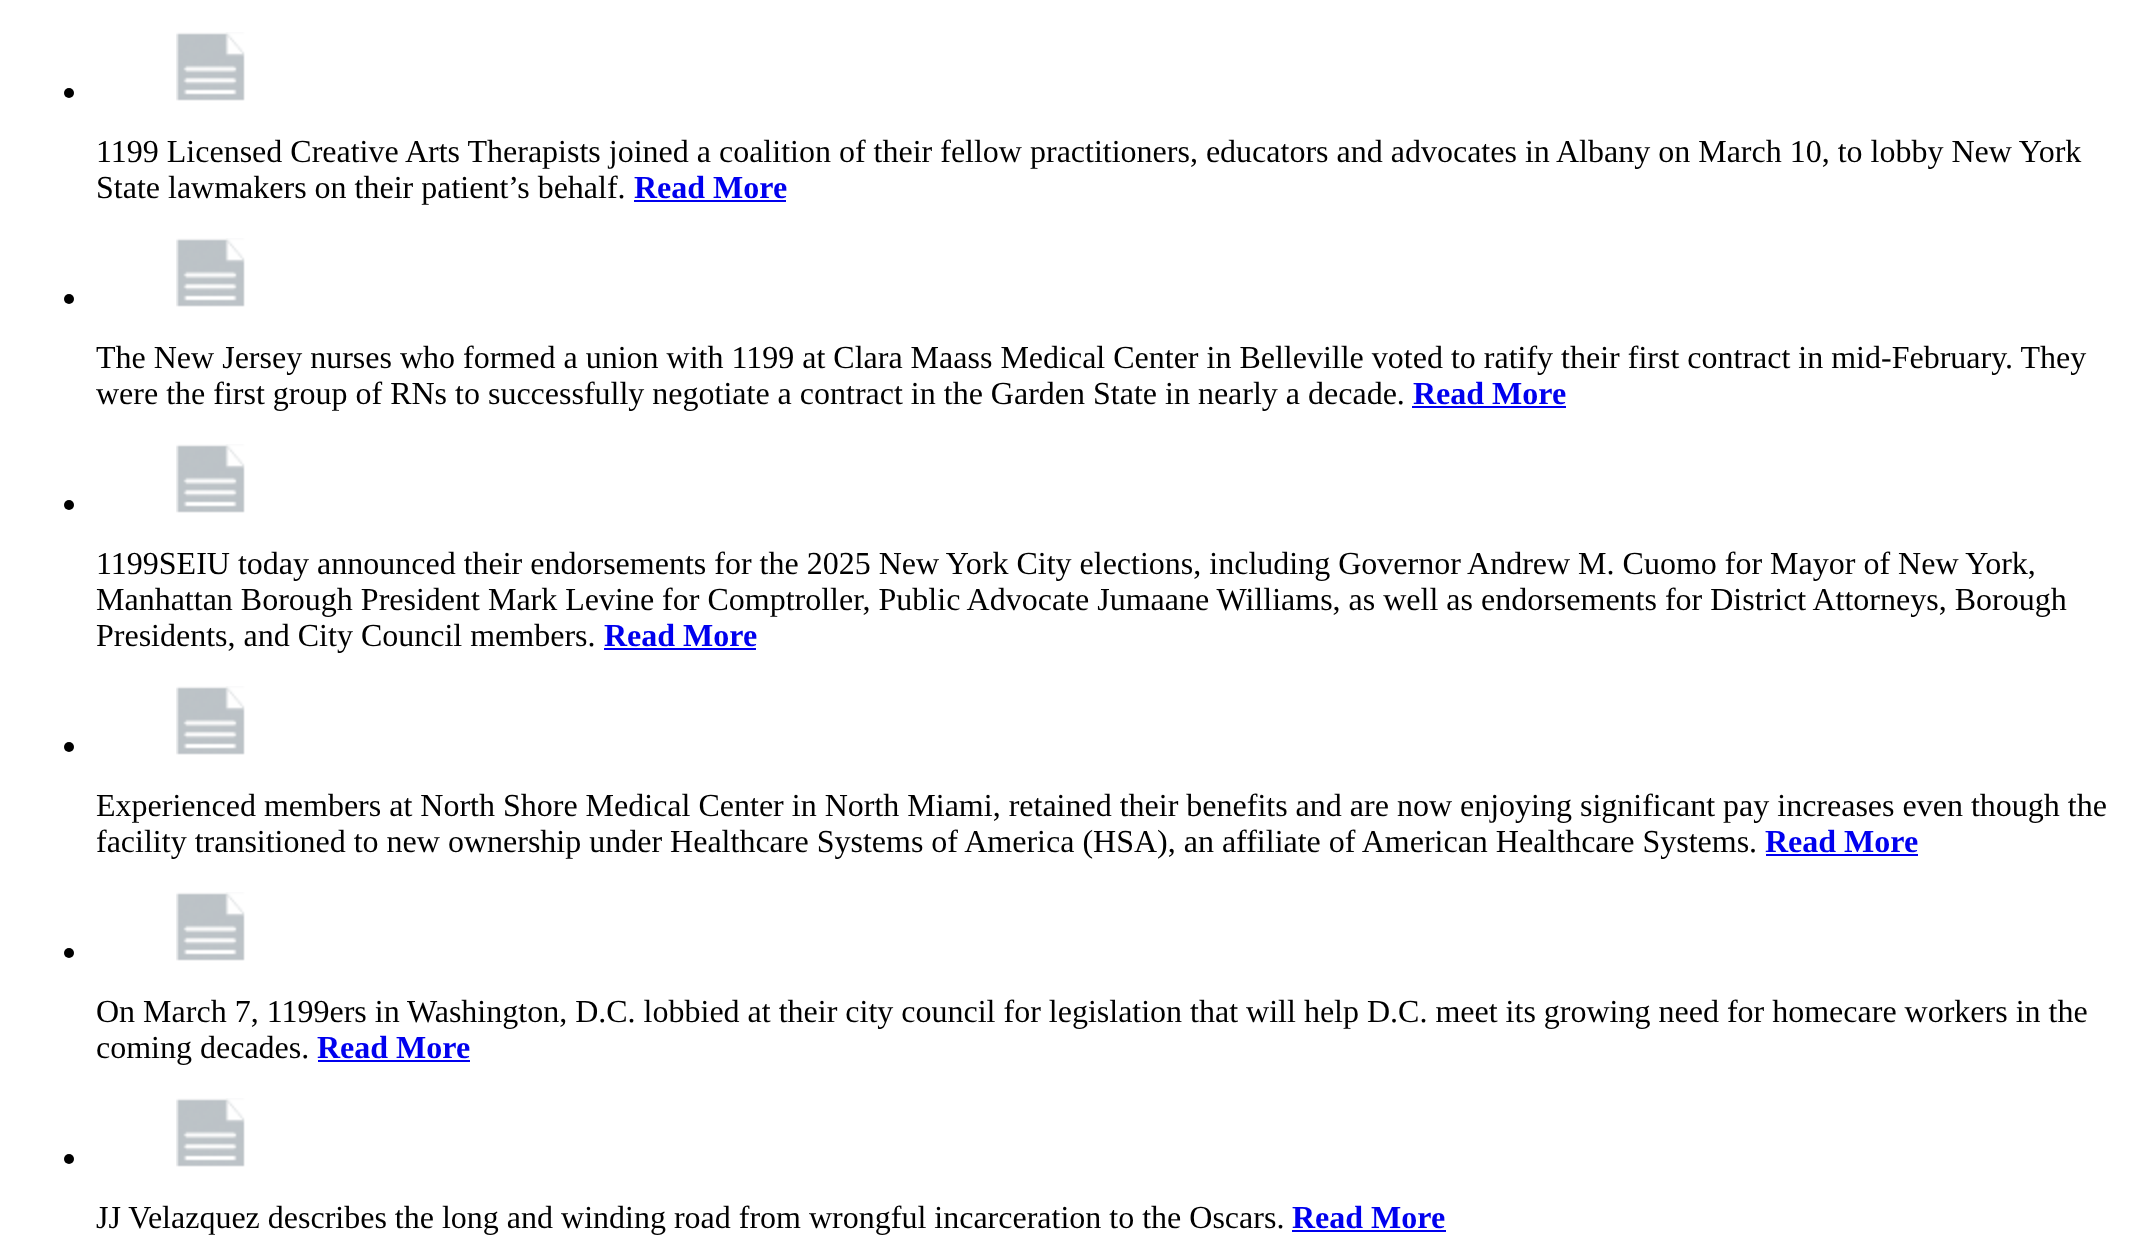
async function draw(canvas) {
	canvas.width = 2134;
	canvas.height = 1259;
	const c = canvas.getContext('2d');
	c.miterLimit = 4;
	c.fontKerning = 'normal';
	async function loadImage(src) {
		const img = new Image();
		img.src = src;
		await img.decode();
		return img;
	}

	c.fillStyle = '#fff';
	c.fillRect(0, 0, 2134, 1259);
	c.fillStyle = '#000';
	c.beginPath();
	c.arc(69, 93, 5, 0, 2 * Math.PI);
	c.fill();
	c.drawImage(await loadImage('img1.png'), 176, 32, 69, 69);
	c.font = '32px Liberation Serif';
	c.fillText('1199 Licensed Creative Arts Therapists joined a coalition of their fellow practitioners, educators and advocates in Albany on March 10, to lobby New York', 96, 162);
	c.fillText('State lawmakers on their patient’s behalf.', 96, 198);
	c.font = 'bold 32px Liberation Serif';
	c.fillStyle = '#00e';
	c.fillText('Read More', 634, 198);
	c.fillRect(634, 200, 152, 2);
	c.fillStyle = '#000';
	c.beginPath();
	c.arc(69, 299, 5, 0, 2 * Math.PI);
	c.fill();
	c.drawImage(await loadImage('img1.png'), 176, 238, 69, 69);
	c.font = '32px Liberation Serif';
	c.fillText('The New Jersey nurses who formed a union with 1199 at Clara Maass Medical Center in Belleville voted to ratify their first contract in mid-February. They', 96, 368);
	c.fillText('were the first group of RNs to successfully negotiate a contract in the Garden State in nearly a decade.', 96, 404);
	c.font = 'bold 32px Liberation Serif';
	c.fillStyle = '#00e';
	c.fillText('Read More', 1413, 404);
	c.fillRect(1412, 406, 154, 2);
	c.fillStyle = '#000';
	c.beginPath();
	c.arc(69, 505, 5, 0, 2 * Math.PI);
	c.fill();
	c.drawImage(await loadImage('img1.png'), 176, 444, 69, 69);
	c.font = '32px Liberation Serif';
	for (const [text, x, y] of [
		['1199SEIU today announced their endorsements for the 2025 New York City elections, including Governor Andrew M. Cuomo for Mayor of New York,', 96, 574],
		['Manhattan Borough President Mark Levine for Comptroller, Public Advocate Jumaane Williams, as well as endorsements for District Attorneys, Borough', 96, 610],
		['Presidents, and City Council members.', 96, 646],
	]) {
		c.fillText(text, x, y);
	}
	c.font = 'bold 32px Liberation Serif';
	c.fillStyle = '#00e';
	c.fillText('Read More', 604, 646);
	c.fillRect(604, 648, 152, 2);
	c.fillStyle = '#000';
	c.beginPath();
	c.arc(69, 747, 5, 0, 2 * Math.PI);
	c.fill();
	c.drawImage(await loadImage('img1.png'), 176, 686, 69, 69);
	c.font = '32px Liberation Serif';
	c.fillText('Experienced members at North Shore Medical Center in North Miami, retained their benefits and are now enjoying significant pay increases even though the', 96, 816);
	c.fillText('facility transitioned to new ownership under Healthcare Systems of America (HSA), an affiliate of American Healthcare Systems.', 96, 852);
	c.font = 'bold 32px Liberation Serif';
	c.fillStyle = '#00e';
	c.fillText('Read More', 1765, 852);
	c.fillRect(1766, 854, 152, 2);
	c.fillStyle = '#000';
	c.beginPath();
	c.arc(69, 953, 5, 0, 2 * Math.PI);
	c.fill();
	c.drawImage(await loadImage('img1.png'), 176, 892, 69, 69);
	c.font = '32px Liberation Serif';
	c.fillText('On March 7, 1199ers in Washington, D.C. lobbied at their city council for legislation that will help D.C. meet its growing need for homecare workers in the', 96, 1022);
	c.fillText('coming decades.', 96, 1058);
	c.font = 'bold 32px Liberation Serif';
	c.fillStyle = '#00e';
	c.fillText('Read More', 317, 1058);
	c.fillRect(318, 1060, 152, 2);
	c.fillStyle = '#000';
	c.beginPath();
	c.arc(69, 1159, 5, 0, 2 * Math.PI);
	c.fill();
	c.drawImage(await loadImage('img1.png'), 176, 1098, 69, 69);
	c.font = '32px Liberation Serif';
	c.fillText('JJ Velazquez describes the long and winding road from wrongful incarceration to the Oscars.', 96, 1228);
	c.font = 'bold 32px Liberation Serif';
	c.fillStyle = '#00e';
	c.fillText('Read More', 1292, 1228);
	c.fillRect(1292, 1230, 154, 2);
}

draw(document.querySelector('canvas'));
